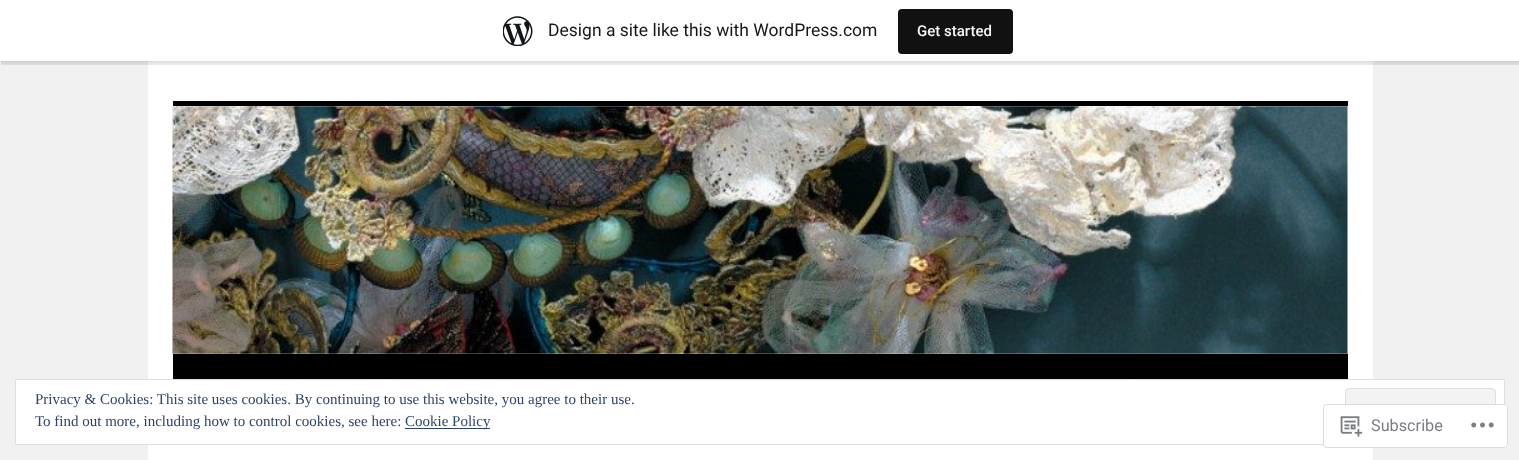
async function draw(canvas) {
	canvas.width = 1519;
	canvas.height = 460;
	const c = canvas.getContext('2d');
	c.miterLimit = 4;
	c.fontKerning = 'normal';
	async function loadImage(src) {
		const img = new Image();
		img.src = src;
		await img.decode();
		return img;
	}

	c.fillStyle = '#f1f1f1';
	c.fillRect(0, 0, 1519, 460);
	c.fillStyle = '#fff';
	c.fillRect(148, 61, 1225, 399);
	c.fillStyle = '#0000000d';
	c.filter = 'blur(1px)';
	c.beginPath();
	c.rect(0, 1, 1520, 62);
	c.fill();
	c.filter = 'none';
	c.fillStyle = '#00000014';
	c.beginPath();
	c.moveTo(1, 61);
	c.lineTo(1, 65);
	c.lineTo(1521, 65);
	c.lineTo(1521, 4);
	c.lineTo(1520, 4);
	c.lineTo(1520, 61);
	c.closePath();
	c.fill();
	c.fillStyle = '#fff';
	c.fillRect(0, 0, 1519, 61);
	c.drawImage(await loadImage('img1.png'), 503, 16, 30, 30);
	c.font = '17.5px Roboto';
	c.fillStyle = '#171717';
	c.fillText('Design a site like this with WordPress.com', 548, 36);
	c.fillStyle = '#111';
	c.beginPath();
	c.roundRect(898, 9, 115, 45, 4);
	c.fill();
	c.font = '500 15px Roboto';
	c.fillStyle = '#f6f7f7';
	c.fillText('Get started', 917, 36);
	c.fillStyle = '#000';
	c.fillRect(173, 101, 1175, 5);
	c.fillRect(173, 354, 1175, 25);
	c.drawImage(await loadImage('img2.png'), 172, 106, 1176, 248);
	c.fillStyle = '#fff';
	c.beginPath();
	c.rect(15.5, 379.5, 1489, 65);
	c.fill();
	c.strokeStyle = '#dedede';
	c.stroke();
	c.font = '15px Liberation Serif';
	c.fillStyle = '#2e4467';
	c.fillText('Privacy & Cookies: This site uses cookies. By continuing to use this website, you agree to their use.', 35, 404);
	c.fillStyle = '#f3f3f3';
	c.beginPath();
	c.roundRect(1345.5, 388.5, 150, 47, 3.5);
	c.fill();
	c.stroke();
	c.fillStyle = '#2e4467';
	c.fillText('To find out more, including how to control cookies, see here:', 35, 426);
	c.fillRect(405, 428, 85, 1);
	c.fillText('Cookie Policy', 405, 426);
	c.fillStyle = '#fffffffa';
	c.beginPath();
	c.roundRect(1323, 404, 185, 44, 4);
	c.fill();
	c.beginPath();
	c.roundRect(1323.5, 404.5, 184, 43, 3.5);
	c.strokeStyle = '#dcdcdefa';
	c.stroke();
	c.drawImage(await loadImage('img3.png'), 1340, 416, 23, 21);
	c.font = '16.25px Roboto';
	c.fillStyle = '#7b7f84';
	c.fillText('Subscribe', 1371, 431);
	c.drawImage(await loadImage('img4.png'), 1471, 422, 23, 6);
}

draw(document.querySelector('canvas'));
